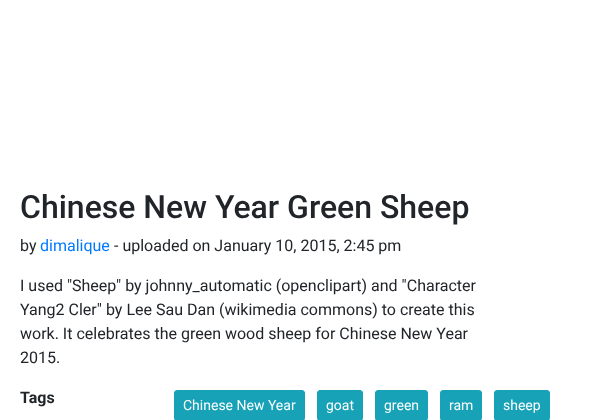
async function draw(canvas) {
	canvas.width = 610;
	canvas.height = 420;
	const c = canvas.getContext('2d');
	c.miterLimit = 4;
	c.fontKerning = 'normal';

	c.fillStyle = '#fff';
	c.fillRect(0, 0, 610, 420);
	c.font = '500 32px Roboto';
	c.fillStyle = '#212529';
	c.fillText('Chinese New Year Green Sheep', 20, 218);
	c.font = '16px Roboto';
	c.fillText('by', 20, 251);
	c.fillStyle = '#007bff';
	c.fillText('dimalique', 40, 251);
	c.fillStyle = '#212529';
	for (const [text, x, y] of [
		['- uploaded on January 10, 2015, 2:45 pm', 114, 251],
		['I used "Sheep" by johnny_automatic (openclipart) and "Character', 20, 291],
		['Yang2 Cler" by Lee Sau Dan (wikimedia commons) to create this', 20, 315],
		['work. It celebrates the green wood sheep for Chinese New Year', 20, 339],
		['2015.', 20, 363],
	]) {
		c.fillText(text, x, y);
	}
	c.font = 'bold 16px Roboto';
	c.fillText('Tags', 20, 403);
	c.fillStyle = '#17a2b8';
	c.beginPath();
	c.roundRect(174.5, 390.5, 130, 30, 2.5);
	c.fill();
	c.strokeStyle = '#17a2b8';
	c.stroke();
	c.font = '14px Roboto';
	c.fillStyle = '#fff';
	c.fillText('Chinese New Year', 183, 410);
	c.fillStyle = '#17a2b8';
	c.beginPath();
	c.roundRect(317.5, 390.5, 45, 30, 2.5);
	c.fill();
	c.stroke();
	c.fillStyle = '#fff';
	c.fillText('goat', 326, 410);
	c.fillStyle = '#17a2b8';
	c.beginPath();
	c.roundRect(375.5, 390.5, 52, 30, 2.5);
	c.fill();
	c.stroke();
	c.fillStyle = '#fff';
	c.fillText('green', 384, 410);
	c.fillStyle = '#17a2b8';
	c.beginPath();
	c.roundRect(440.5, 390.5, 41, 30, 2.5);
	c.fill();
	c.stroke();
	c.fillStyle = '#fff';
	c.fillText('ram', 449, 410);
	c.fillStyle = '#17a2b8';
	c.beginPath();
	c.roundRect(494.5, 390.5, 55, 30, 2.5);
	c.fill();
	c.stroke();
	c.fillStyle = '#fff';
	c.fillText('sheep', 503, 410);
}

draw(document.querySelector('canvas'));
